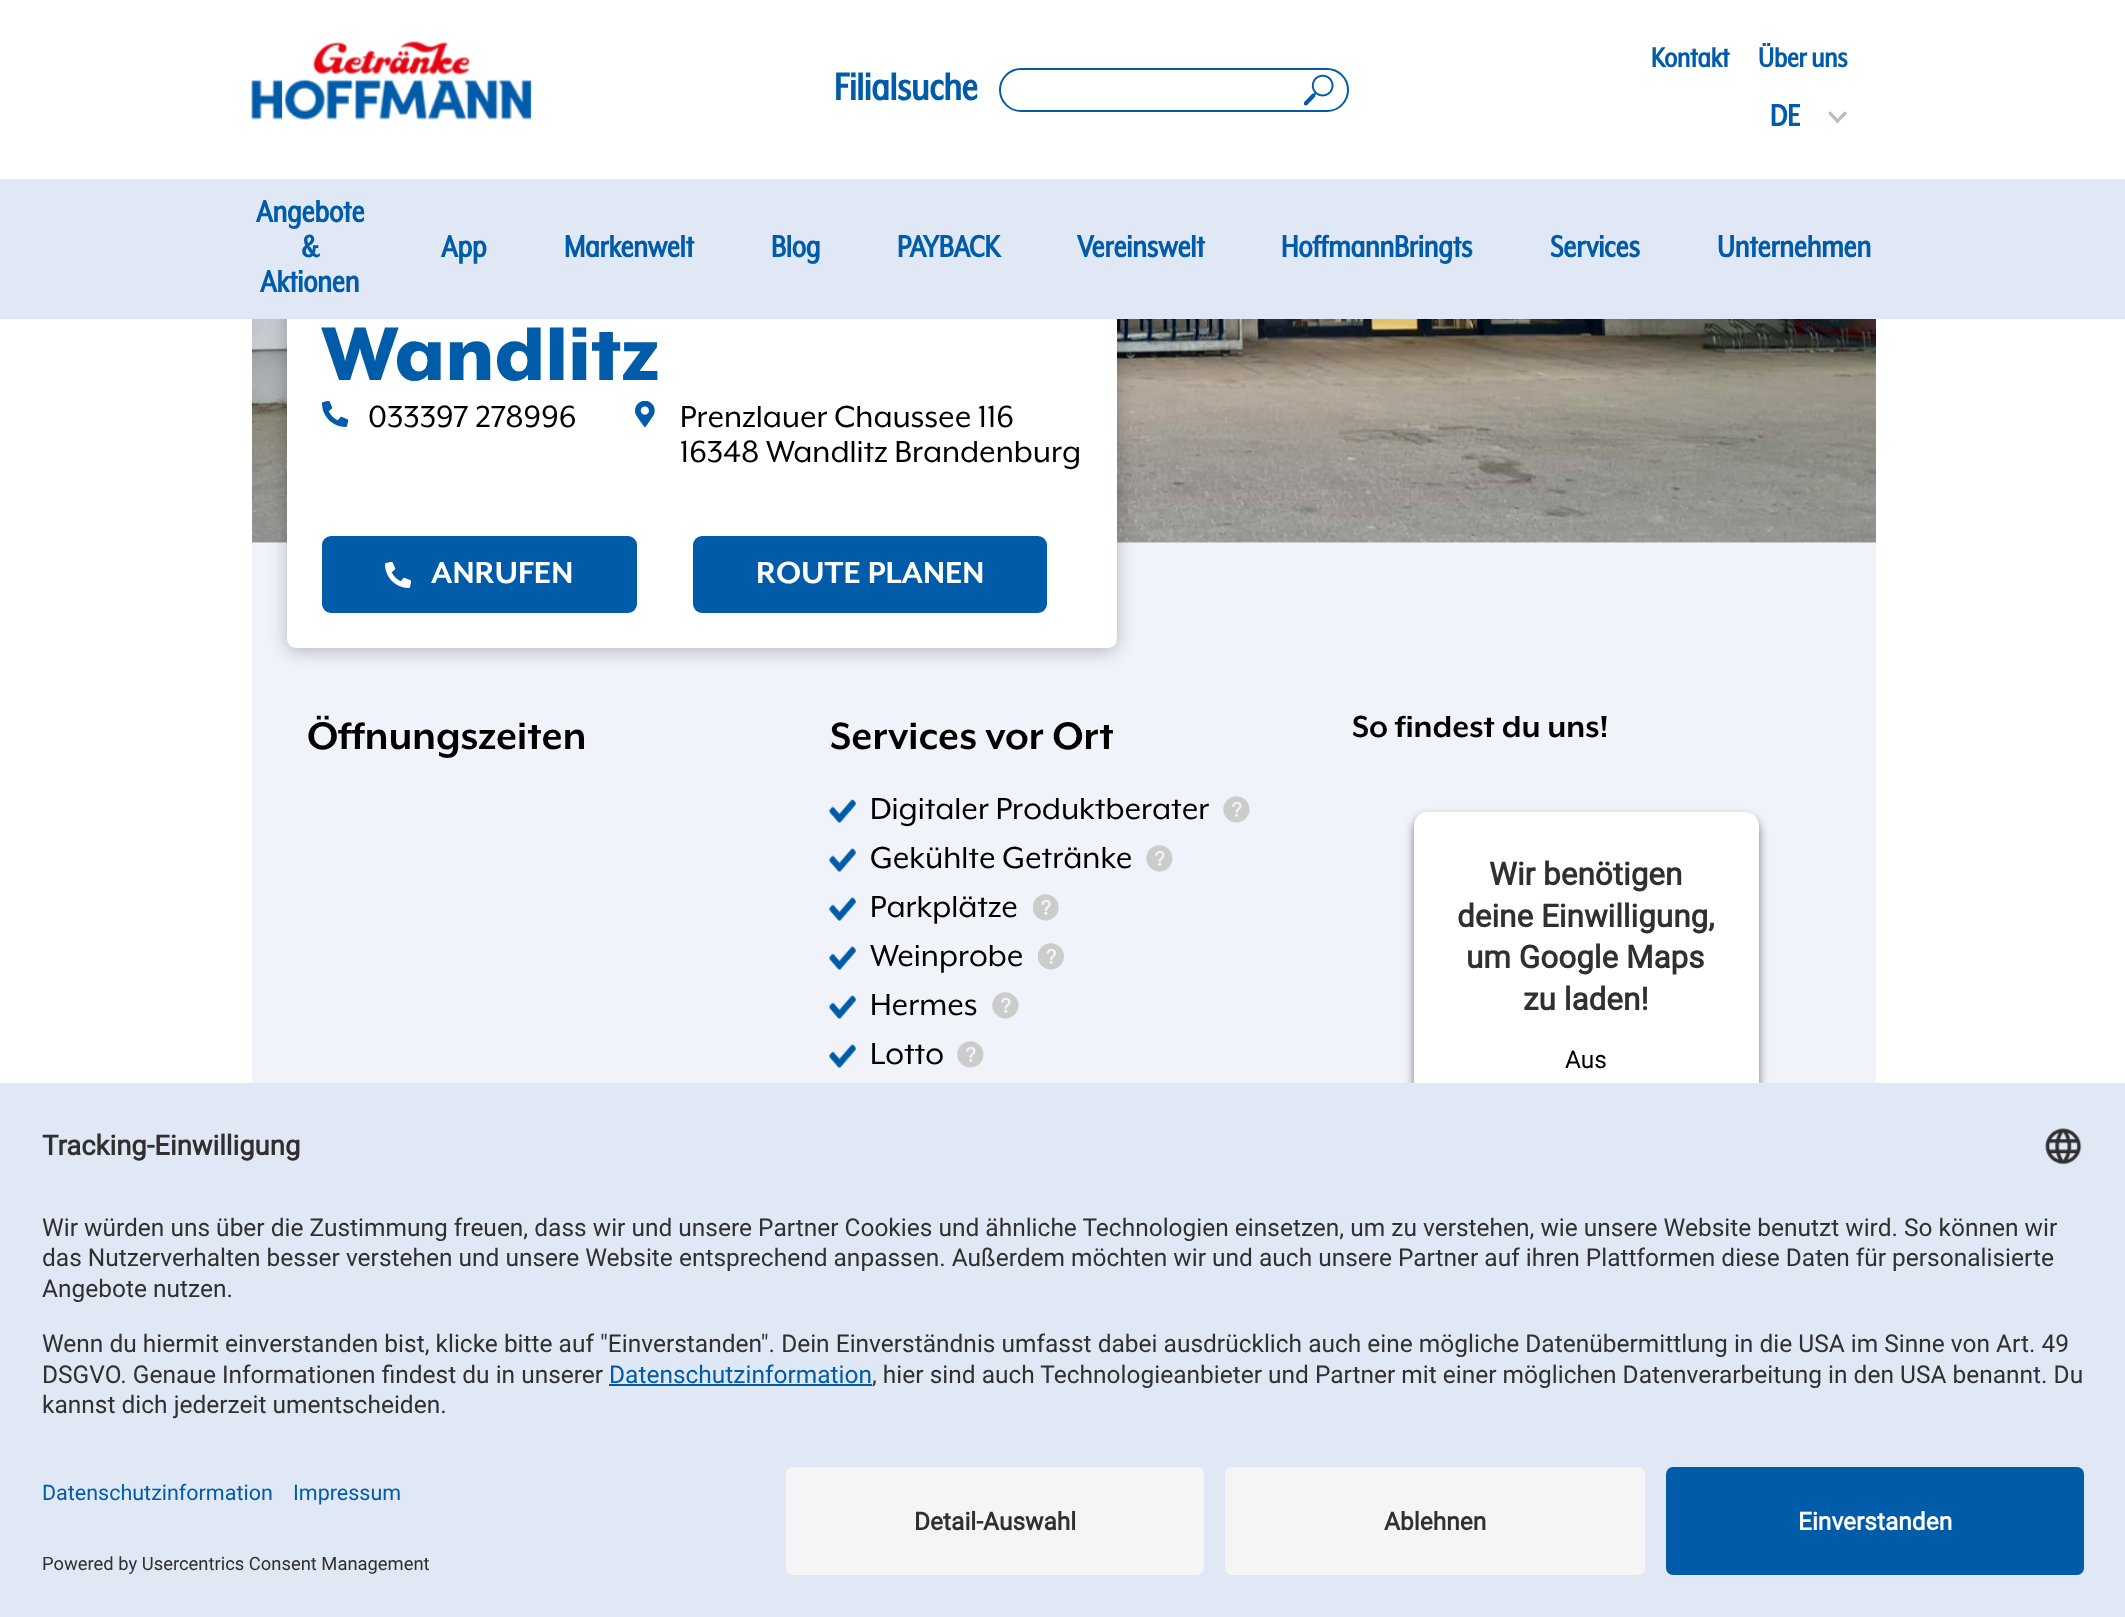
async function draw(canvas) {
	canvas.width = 2125;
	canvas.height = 1617;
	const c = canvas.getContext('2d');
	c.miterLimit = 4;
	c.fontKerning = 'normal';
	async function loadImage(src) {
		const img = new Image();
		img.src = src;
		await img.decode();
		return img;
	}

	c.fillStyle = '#fff';
	c.fillRect(0, 0, 2125, 1617);
	c.drawImage(await loadImage('img1.png'), 251, 41, 281, 79);
	c.font = 'bold 43.75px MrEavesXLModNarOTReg';
	c.fillStyle = '#005ca9';
	c.fillText('Filialsuche', 834, 100);
	c.beginPath();
	c.roundRect(1000, 69, 348, 42, 21);
	c.strokeStyle = '#005ca9';
	c.lineWidth = 2;
	c.stroke();
	c.drawImage(await loadImage('img2.png'), 1304, 74, 30, 32);
	c.font = 'bold 31.5px MrEavesXLModNarOTReg';
	c.fillText('Kontakt', 1651, 67);
	c.fillText('Über uns', 1758, 67);
	c.font = 'bold 35px MrEavesXLModNarOTReg';
	c.fillText('DE', 1770, 126);
	c.drawImage(await loadImage('img3.png'), 1828, 111, 19, 12);
	c.drawImage(await loadImage('img4.png'), 252, 319, 1624, 224);
	c.fillStyle = '#f0f3fa';
	c.fillRect(252, 543, 1624, 540);
	c.fillStyle = '#00000040';
	c.filter = 'blur(9px)';
	c.beginPath();
	c.roundRect(287, 222, 830, 429, 9);
	c.fill();
	c.filter = 'none';
	c.fillStyle = '#fff';
	c.beginPath();
	c.roundRect(287, 219, 830, 429, 9);
	c.fill();
	c.fillStyle = '#e1e8f5';
	c.fillRect(0, 179, 2125, 140);
	c.fillStyle = '#005ca9';
	for (const [text, x, y] of [
		['Angebote', 256, 222],
		['&', 301, 257],
		['Aktionen', 260, 292],
		['App', 441, 257],
		['Markenwelt', 564, 257],
		['Blog', 771, 257],
		['PAYBACK', 897, 257],
		['Vereinswelt', 1077, 257],
		['HoffmannBringts', 1281, 257],
		['Services', 1550, 257],
		['Unternehmen', 1717, 257],
	]) {
		c.fillText(text, x, y);
	}
	c.font = '900 87.5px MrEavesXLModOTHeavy';
	c.fillText('Wandlitz', 321, 380);
	c.drawImage(await loadImage('img5.png'), 322, 401, 26, 26);
	c.font = '35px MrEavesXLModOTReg';
	c.fillStyle = '#000';
	c.fillText('033397 278996', 368, 427);
	c.drawImage(await loadImage('img6.png'), 635, 401, 20, 26);
	c.fillText('Prenzlauer Chaussee 116', 680, 427);
	c.fillText('16348 Wandlitz Brandenburg', 680, 462);
	c.fillStyle = '#005ca9';
	c.beginPath();
	c.roundRect(322, 536, 315, 77, 9);
	c.fill();
	c.drawImage(await loadImage('img7.png'), 385, 562, 26, 26);
	c.font = 'bold 35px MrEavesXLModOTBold';
	c.fillStyle = '#fff';
	c.fillText('ANRUFEN', 431, 583);
	c.fillStyle = '#005ca9';
	c.beginPath();
	c.roundRect(693, 536, 354, 77, 9);
	c.fill();
	c.fillStyle = '#fff';
	c.fillText('ROUTE PLANEN', 756, 583);
	c.font = 'bold 43.75px MrEavesXLModOTBold';
	c.fillStyle = '#000';
	c.fillText('Öffnungszeiten', 307, 749);
	c.fillText('Services vor Ort', 830, 749);
	c.drawImage(await loadImage('img8.png'), 829, 799, 27, 24);
	c.font = '35px MrEavesXLModOTReg';
	c.fillText('Digitaler Produktberater', 870, 819);
	c.drawImage(await loadImage('img9.png'), 1223, 796, 27, 27);
	c.drawImage(await loadImage('img8.png'), 829, 848, 27, 24);
	c.fillText('Gekühlte Getränke', 870, 868);
	c.drawImage(await loadImage('img9.png'), 1146, 845, 27, 27);
	c.drawImage(await loadImage('img8.png'), 829, 897, 27, 24);
	c.fillText('Parkplätze', 870, 917);
	c.drawImage(await loadImage('img10.png'), 1033, 894, 26, 27);
	c.drawImage(await loadImage('img8.png'), 829, 946, 27, 24);
	c.fillText('Weinprobe', 870, 966);
	c.drawImage(await loadImage('img11.png'), 1038, 943, 26, 27);
	c.drawImage(await loadImage('img8.png'), 829, 995, 27, 24);
	c.fillText('Hermes', 870, 1015);
	c.drawImage(await loadImage('img9.png'), 992, 992, 27, 27);
	c.drawImage(await loadImage('img8.png'), 829, 1044, 27, 24);
	c.fillText('Lotto', 870, 1064);
	c.drawImage(await loadImage('img9.png'), 957, 1041, 27, 27);
	c.font = 'bold 35px MrEavesXLModOTBold';
	c.fillText('So findest du uns!', 1352, 737);
	c.fillStyle = '#00000080';
	c.filter = 'blur(5px)';
	c.beginPath();
	c.roundRect(1414, 817, 345, 499, 14);
	c.fill();
	c.filter = 'none';
	c.fillStyle = '#fff';
	c.beginPath();
	c.roundRect(1414, 812, 345, 499, 14);
	c.fill();
	c.font = 'bold 31.5px Roboto';
	c.fillStyle = '#303030';
	for (const [text, x, y] of [
		['Wir benötigen', 1489, 885],
		['deine Einwilligung,', 1457, 927],
		['um Google Maps', 1466, 968],
		['zu laden!', 1523, 1010],
	]) {
		c.fillText(text, x, y);
	}
	c.font = '24.5px Roboto';
	c.fillStyle = '#000';
	c.fillText('Aus', 1565, 1068);
	c.fillStyle = '#e1e8f5';
	c.fillRect(0, 1083, 2125, 534);
	c.font = 'bold 27.5px Roboto';
	c.fillStyle = '#303030';
	c.fillText('Tracking-Einwilligung', 42, 1155);
	c.drawImage(await loadImage('img12.png'), 2045, 1128, 37, 37);
	c.font = '24.5px Roboto';
	for (const [text, x, y] of [
		['Wir würden uns über die Zustimmung freuen, dass wir und unsere Partner Cookies und ähnliche Technologien einsetzen, um zu verstehen, wie unsere Website benutzt wird. So können wir', 42, 1236],
		['das Nutzerverhalten besser verstehen und unsere Website entsprechend anpassen. Außerdem möchten wir und auch unsere Partner auf ihren Plattformen diese Daten für personalisierte', 42, 1266],
		['Angebote nutzen.', 42, 1297],
		['Wenn du hiermit einverstanden bist, klicke bitte auf "Einverstanden". Dein Einverständnis umfasst dabei ausdrücklich auch eine mögliche Datenübermittlung in die USA im Sinne von Art. 49', 42, 1352],
		['DSGVO. Genaue Informationen findest du in unserer', 42, 1383],
	]) {
		c.fillText(text, x, y);
	}
	c.fillStyle = '#005ca9';
	c.fillText('Datenschutzinformation', 609, 1383);
	c.fillRect(609, 1384, 263, 2);
	c.fillStyle = '#303030';
	c.fillText(', hier sind auch Technologieanbieter und Partner mit einer möglichen Datenverarbeitung in den USA benannt. Du', 872, 1383);
	c.fillText('kannst dich jederzeit umentscheiden.', 42, 1413);
	c.font = '21.5px Roboto';
	c.fillStyle = '#005ca9';
	c.fillText('Datenschutzinformation', 42, 1500);
	c.fillText('Impressum', 293, 1500);
	c.font = '18.4px Roboto';
	c.fillStyle = '#303030';
	c.fillText('Powered by Usercentrics Consent Management', 42, 1570);
	c.fillStyle = '#f5f5f5';
	c.beginPath();
	c.roundRect(786, 1467, 418, 108, 7);
	c.fill();
	c.font = 'bold 24.5px Roboto';
	c.fillStyle = '#303030';
	c.fillText('Detail-Auswahl', 914, 1530);
	c.fillStyle = '#f5f5f5';
	c.beginPath();
	c.roundRect(1225, 1467, 420, 108, 7);
	c.fill();
	c.fillStyle = '#303030';
	c.fillText('Ablehnen', 1384, 1530);
	c.fillStyle = '#005ca9';
	c.beginPath();
	c.roundRect(1666, 1467, 418, 108, 7);
	c.fill();
	c.fillStyle = '#fff';
	c.fillText('Einverstanden', 1798, 1530);
}

draw(document.querySelector('canvas'));
